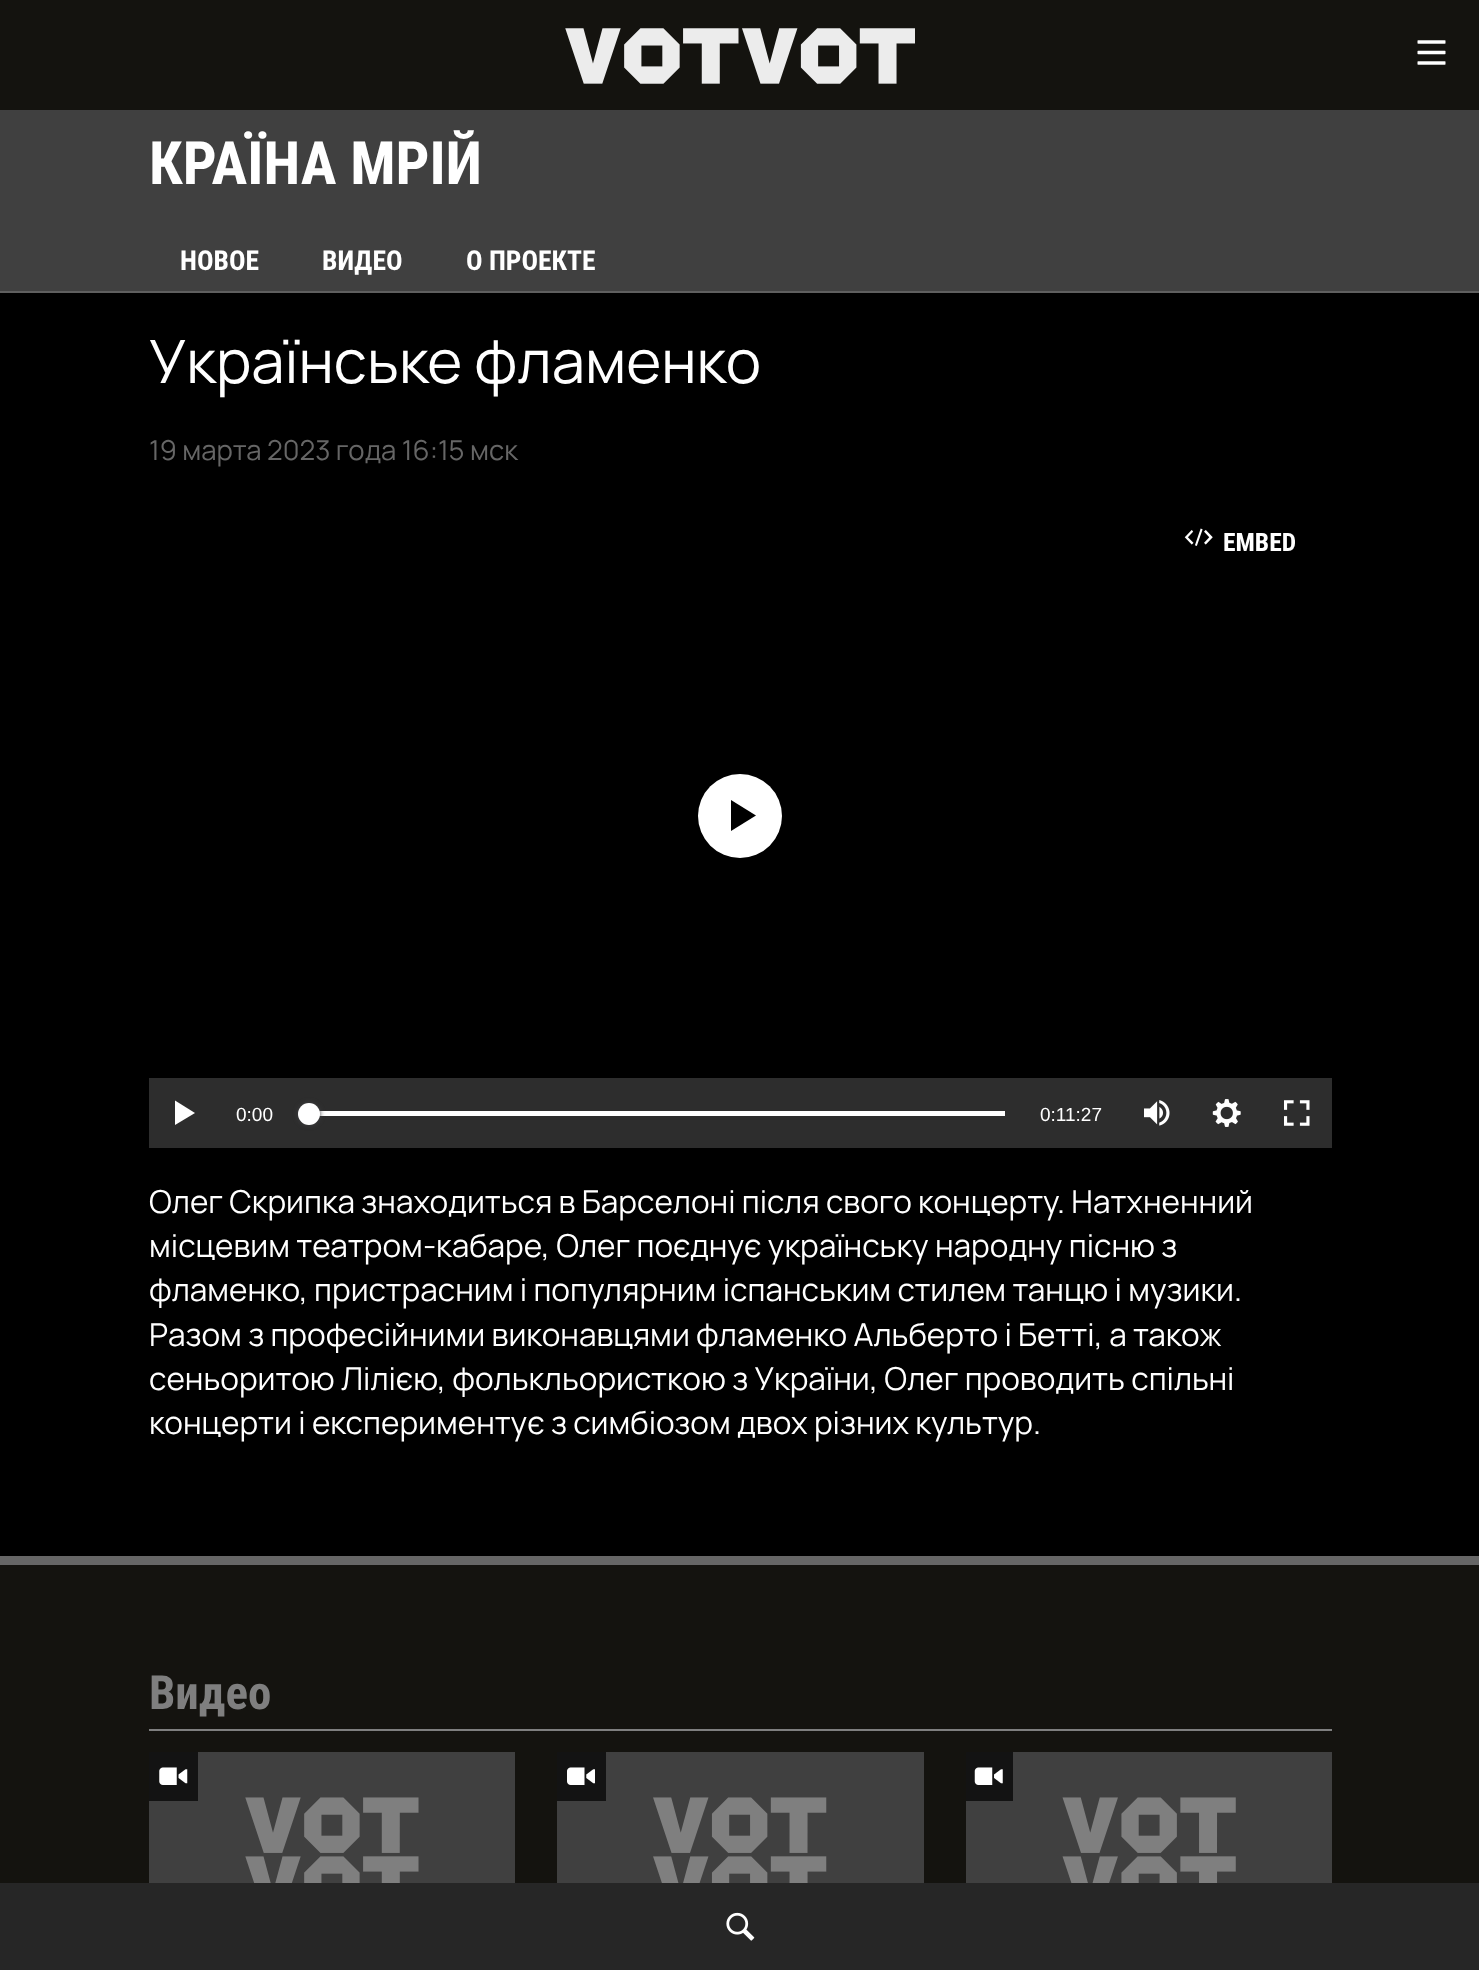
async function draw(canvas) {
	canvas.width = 1479;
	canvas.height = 1970;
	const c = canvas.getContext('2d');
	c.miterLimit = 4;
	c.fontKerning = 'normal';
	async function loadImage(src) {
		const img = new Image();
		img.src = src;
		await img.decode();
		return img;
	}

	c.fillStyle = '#14130f';
	c.fillRect(0, 0, 1479, 1970);
	c.drawImage(await loadImage('img1.png'), 565, 28, 350, 56);
	c.drawImage(await loadImage('img2.png'), 1417, 40, 29, 25);
	c.fillStyle = '#262626';
	c.fillRect(0, 1883, 1479, 87);
	c.drawImage(await loadImage('img3.png'), 726, 1912, 29, 29);
	c.fillStyle = '#404040';
	c.fillRect(0, 110, 1479, 181);
	c.font = 'bold 59.8px Roboto Condensed';
	c.fillStyle = '#fff';
	c.fillText('КРАЇНА МРІЙ', 149, 184);
	c.font = 'bold 27.5px Roboto Condensed';
	for (const [text, x, y] of [
		['НОВОЕ', 180, 270],
		['ВИДЕО', 322, 270],
		['О ПРОЕКТЕ', 466, 270],
	]) {
		c.fillText(text, x, y);
	}
	for (const [x, y, w, h, color] of [
		[0, 293, 1479, 1263, '#000'],
		[0, 291, 1479, 2, '#5f5f5f'],
		[0, 1556, 1479, 9, '#666'],
	]) {
		c.fillStyle = color;
		c.fillRect(x, y, w, h);
	}
	c.font = '59.8px Manrope';
	c.fillStyle = '#fff';
	c.fillText('Українське фламенко', 149, 383);
	c.font = '27.5px Manrope';
	c.fillStyle = '#666';
	c.fillText('19 марта 2023 года 16:15 мск', 149, 460);
	c.drawImage(await loadImage('img4.png'), 1184, 528, 29, 18);
	c.font = 'bold 25.5px Roboto Condensed';
	c.fillStyle = '#fff';
	c.fillText('EMBED', 1223, 551);
	c.beginPath();
	c.arc(740, 816, 42, 0, 2 * Math.PI);
	c.fill();
	c.fillStyle = '#000';
	c.beginPath();
	c.moveTo(731, 831);
	c.lineTo(756, 815.5);
	c.lineTo(731, 800);
	c.closePath();
	c.fill();
	c.fillStyle = '#2d2d2d';
	c.fillRect(149, 1078, 1183, 70);
	c.fillStyle = '#fff';
	c.beginPath();
	c.moveTo(175, 1125);
	c.lineTo(195, 1113);
	c.lineTo(175, 1100.5);
	c.closePath();
	c.fill();
	c.font = '19px Liberation Sans';
	c.fillText('0:00', 236, 1121);
	c.fillRect(319, 1111, 686, 5);
	c.fillStyle = '#414144';
	c.filter = 'blur(2.5px)';
	c.beginPath();
	c.roundRect(298, 1103, 22, 22, 11);
	c.fill();
	c.filter = 'none';
	c.fillStyle = '#fff';
	c.beginPath();
	c.arc(309, 1114, 11, 0, 2 * Math.PI);
	c.fill();
	c.fillText('0:11:27', 1040, 1121);
	c.drawImage(await loadImage('img5.png'), 1144, 1100, 26, 26);
	c.drawImage(await loadImage('img6.png'), 1212, 1099, 29, 28);
	c.drawImage(await loadImage('img7.png'), 1284, 1100, 26, 26);
	c.font = '31.5px Manrope';
	for (const [text, x, y] of [
		['Олег Скрипка знаходиться в Барселоні після свого концерту. Натхненний', 149, 1213],
		['місцевим театром-кабаре, Олег поєднує українську народну пісню з', 149, 1257],
		['фламенко, пристрасним і популярним іспанським стилем танцю і музики.', 149, 1301],
		['Разом з професійними виконавцями фламенко Альберто і Бетті, а також', 149, 1346],
		['сеньоритою Лілією, фолькльористкою з України, Олег проводить спільні', 149, 1390],
		['концерти і експериментує з симбіозом двох різних культур.', 149, 1434],
	]) {
		c.fillText(text, x, y);
	}
	c.fillStyle = '#7f7f7f';
	c.fillRect(149, 1729, 1183, 2);
	c.font = 'bold 47px Roboto Condensed';
	c.fillText('Видео', 149, 1709);
	c.fillStyle = '#404040';
	c.fillRect(149, 1752, 366, 131);
	c.drawImage(await loadImage('img8.png'), 245, 1797, 174, 86);
	c.fillStyle = '#131313';
	c.fillRect(149, 1752, 49, 49);
	c.drawImage(await loadImage('img9.png'), 159, 1767, 29, 18);
	c.fillStyle = '#404040';
	c.fillRect(557, 1752, 367, 131);
	c.drawImage(await loadImage('img10.png'), 653, 1797, 174, 86);
	c.fillStyle = '#131313';
	c.fillRect(557, 1752, 49, 49);
	c.drawImage(await loadImage('img11.png'), 567, 1767, 28, 18);
	c.fillStyle = '#404040';
	c.fillRect(966, 1752, 366, 131);
	c.drawImage(await loadImage('img12.png'), 1062, 1797, 174, 86);
	c.fillStyle = '#131313';
	c.fillRect(966, 1752, 47, 49);
	c.drawImage(await loadImage('img13.png'), 974, 1767, 29, 18);
}

draw(document.querySelector('canvas'));
